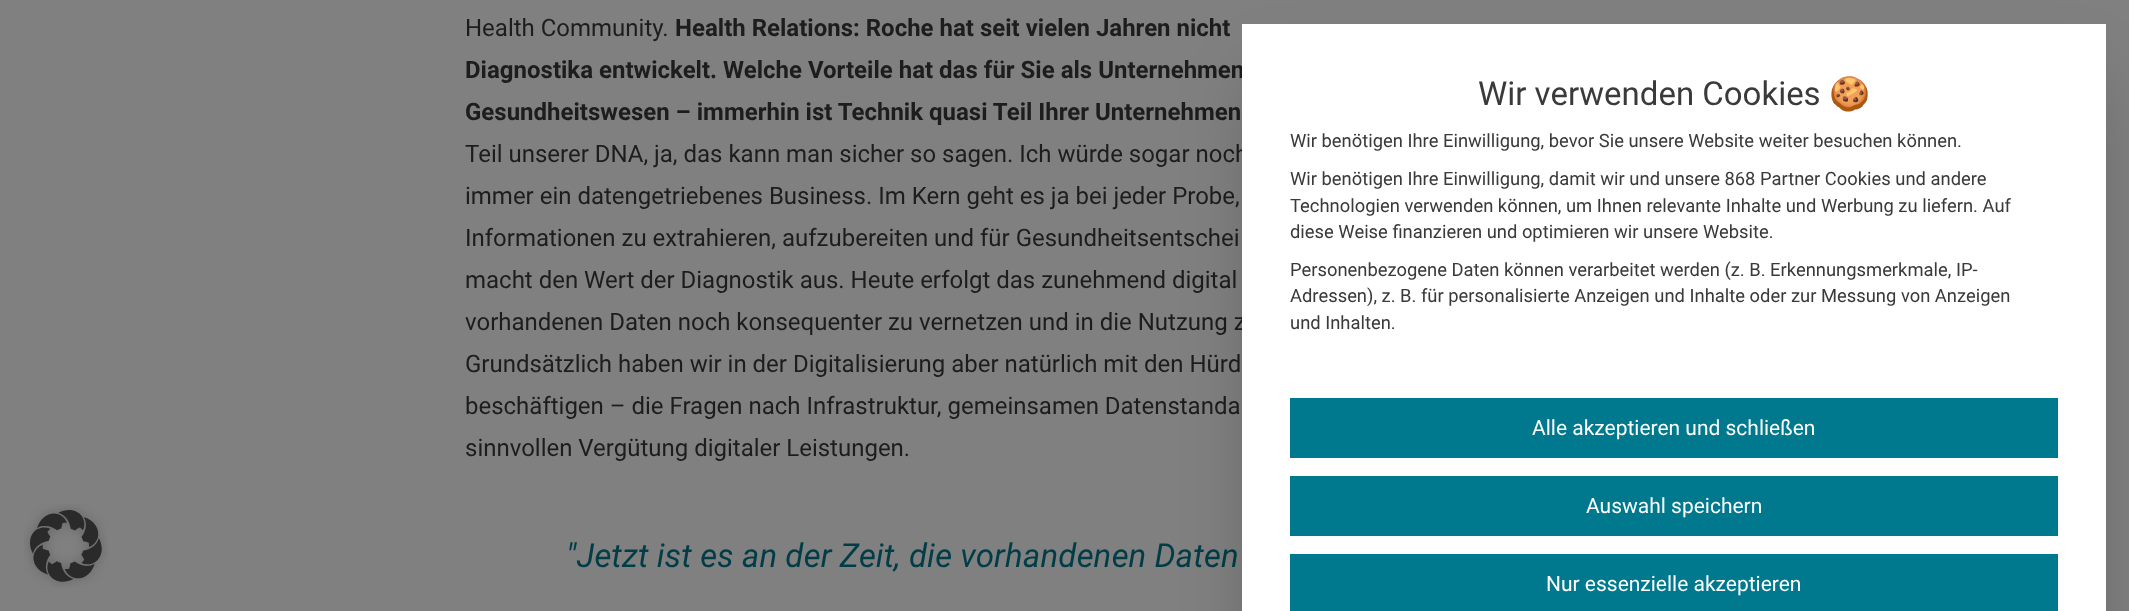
async function draw(canvas) {
	canvas.width = 2129;
	canvas.height = 611;
	const c = canvas.getContext('2d');
	c.miterLimit = 4;
	c.fontKerning = 'normal';
	async function loadImage(src) {
		const img = new Image();
		img.src = src;
		await img.decode();
		return img;
	}

	c.fillStyle = '#808080';
	c.fillRect(0, 0, 2129, 611);
	c.drawImage(await loadImage('img1.png'), 24, 504, 84, 84);
	c.font = '24px Roboto';
	c.fillStyle = '#1d1d1d';
	c.fillText('Health Community.', 465, 36);
	c.font = 'bold 24px Roboto';
	for (const [text, x, y] of [
		['Health Relations: Roche hat seit vielen Jahren nicht', 675, 36],
		['Diagnostika entwickelt. Welche Vorteile hat das für Sie als Unternehmen', 465, 78],
		['Gesundheitswesen – immerhin ist Technik quasi Teil Ihrer Unternehmen', 465, 120],
	]) {
		c.fillText(text, x, y);
	}
	c.font = '24px Roboto';
	for (const [text, x, y] of [
		['Teil unserer DNA, ja, das kann man sicher so sagen. Ich würde sogar noch', 465, 162],
		['immer ein datengetriebenes Business. Im Kern geht es ja bei jeder Probe,', 465, 204],
		['Informationen zu extrahieren, aufzubereiten und für Gesundheitsentschei', 465, 246],
		['macht den Wert der Diagnostik aus. Heute erfolgt das zunehmend digital', 465, 288],
		['vorhandenen Daten noch konsequenter zu vernetzen und in die Nutzung z', 465, 330],
		['Grundsätzlich haben wir in der Digitalisierung aber natürlich mit den Hürd', 465, 372],
		['beschäftigen – die Fragen nach Infrastruktur, gemeinsamen Datenstanda', 465, 414],
		['sinnvollen Vergütung digitaler Leistungen.', 465, 456],
	]) {
		c.fillText(text, x, y);
	}
	c.font = 'italic 33px Roboto';
	c.fillStyle = '#003d47';
	c.fillText('"Jetzt ist es an der Zeit, die vorhandenen Daten', 566, 567);
	c.fillStyle = '#00000040';
	c.filter = 'blur(37.5px)';
	c.beginPath();
	c.rect(1260, 80, 828, 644);
	c.fill();
	c.filter = 'none';
	c.fillStyle = '#fff';
	c.fillRect(1242, 24, 864, 587);
	c.font = '33px Roboto';
	c.fillStyle = '#3a3a3a';
	c.fillText('Wir verwenden Cookies', 1478, 105);
	c.font = '33px Noto Color Emoji';
	c.fillText('🍪', 1829, 105);
	c.font = '18.4px Roboto';
	for (const [text, x, y] of [
		['Wir benötigen Ihre Einwilligung, bevor Sie unsere Website weiter besuchen können.', 1290, 147],
		['Wir benötigen Ihre Einwilligung, damit wir und unsere 868 Partner Cookies und andere', 1290, 185],
		['Technologien verwenden können, um Ihnen relevante Inhalte und Werbung zu liefern. Auf', 1290, 212],
		['diese Weise finanzieren und optimieren wir unsere Website.', 1290, 238],
		['Personenbezogene Daten können verarbeitet werden (z. B. Erkennungsmerkmale, IP-', 1290, 276],
		['Adressen), z. B. für personalisierte Anzeigen und Inhalte oder zur Messung von Anzeigen', 1290, 302],
		['und Inhalten.', 1290, 329],
	]) {
		c.fillText(text, x, y);
	}
	c.fillStyle = '#00798e';
	c.fillRect(1290, 398, 768, 60);
	c.font = '21px Roboto';
	c.fillStyle = '#fff';
	c.fillText('Alle akzeptieren und schließen', 1532, 435);
	c.fillStyle = '#00798e';
	c.fillRect(1290, 476, 768, 60);
	c.fillStyle = '#fff';
	c.fillText('Auswahl speichern', 1586, 513);
	c.fillStyle = '#00798e';
	c.fillRect(1290, 554, 768, 57);
	c.fillStyle = '#fff';
	c.fillText('Nur essenzielle akzeptieren', 1546, 591);
}

draw(document.querySelector('canvas'));
